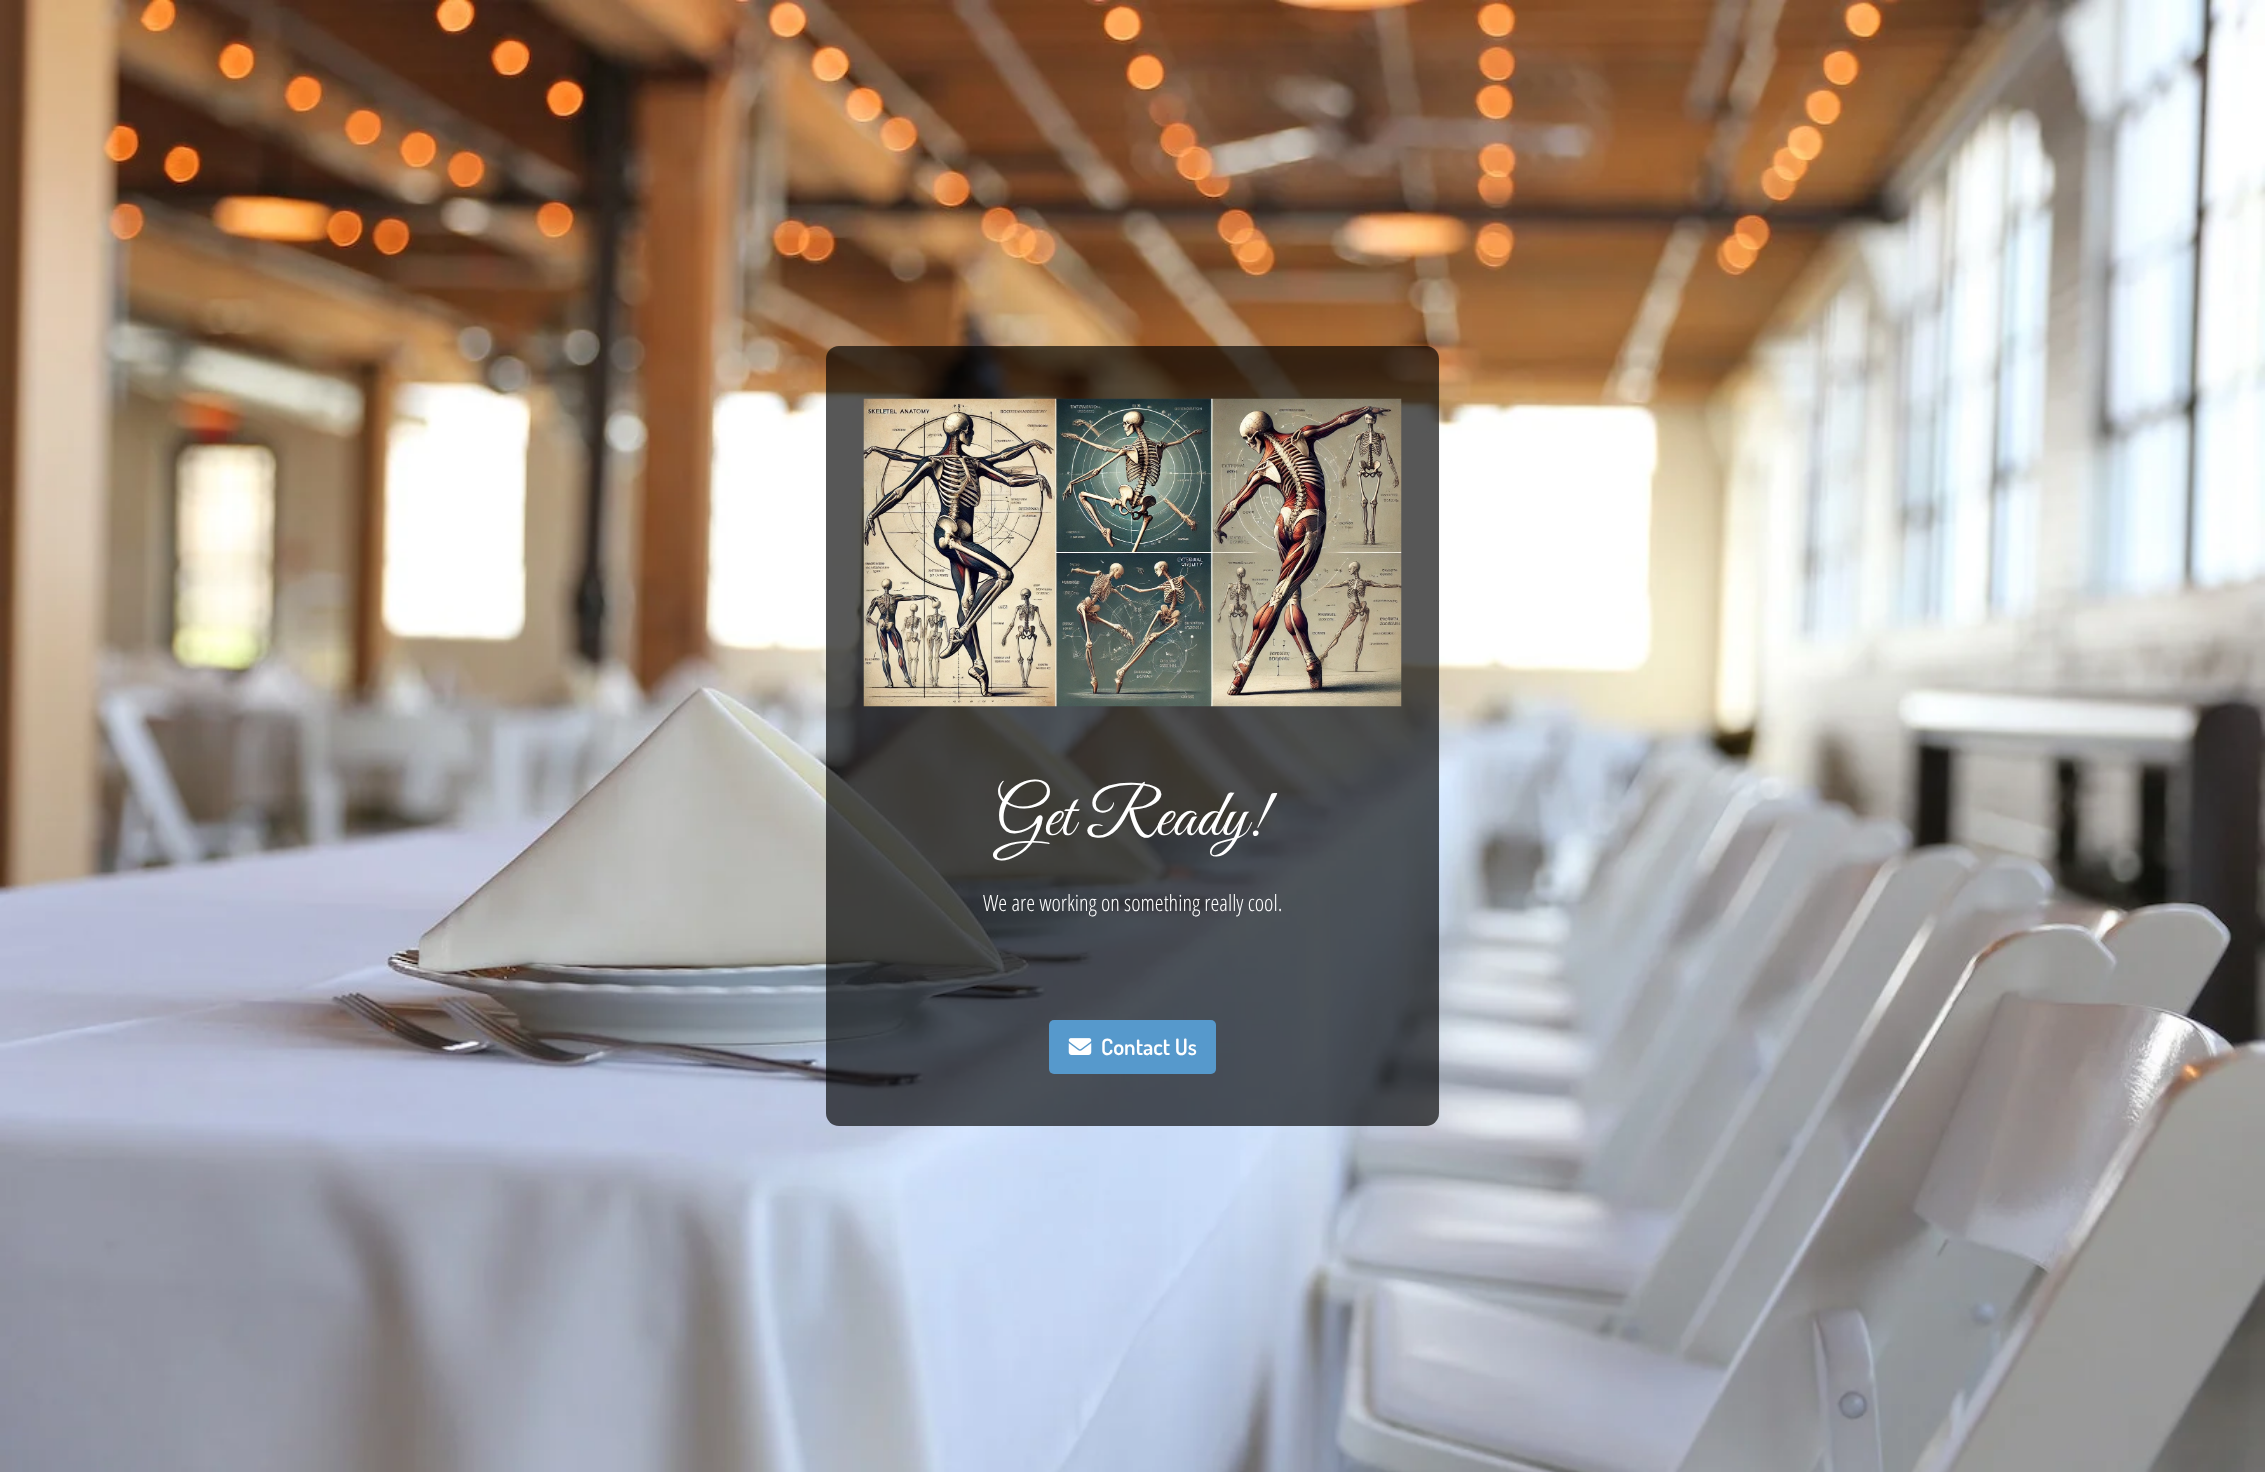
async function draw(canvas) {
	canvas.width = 2265;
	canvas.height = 1472;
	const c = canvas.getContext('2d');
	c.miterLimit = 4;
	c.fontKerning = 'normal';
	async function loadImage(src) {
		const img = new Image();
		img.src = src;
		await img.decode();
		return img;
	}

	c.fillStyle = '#fff';
	c.fillRect(0, 0, 2265, 1472);
	c.drawImage(await loadImage('img1.png'), 0, 0, 2265, 1472);
	c.fillStyle = '#000000a8';
	c.beginPath();
	c.roundRect(826, 346, 613, 780, 13);
	c.fill();
	c.drawImage(await loadImage('img2.png'), 863, 398, 539, 309);
	c.font = '67.5px Great Vibes';
	c.fillStyle = '#fff';
	c.fillText('Get Ready!', 996, 835);
	c.font = '300 22.5px Open Sans Condensed';
	c.fillText('We are working on something really cool.', 983, 911);
	c.fillStyle = '#5699cc';
	c.beginPath();
	c.roundRect(1049, 1020, 167, 54, 5);
	c.fill();
	c.drawImage(await loadImage('img3.png'), 1068, 1038, 24, 17);
	c.font = '600 22.5px Dosis';
	c.fillStyle = '#fff';
	c.fillText('Contact Us', 1101, 1055);
}

draw(document.querySelector('canvas'));
